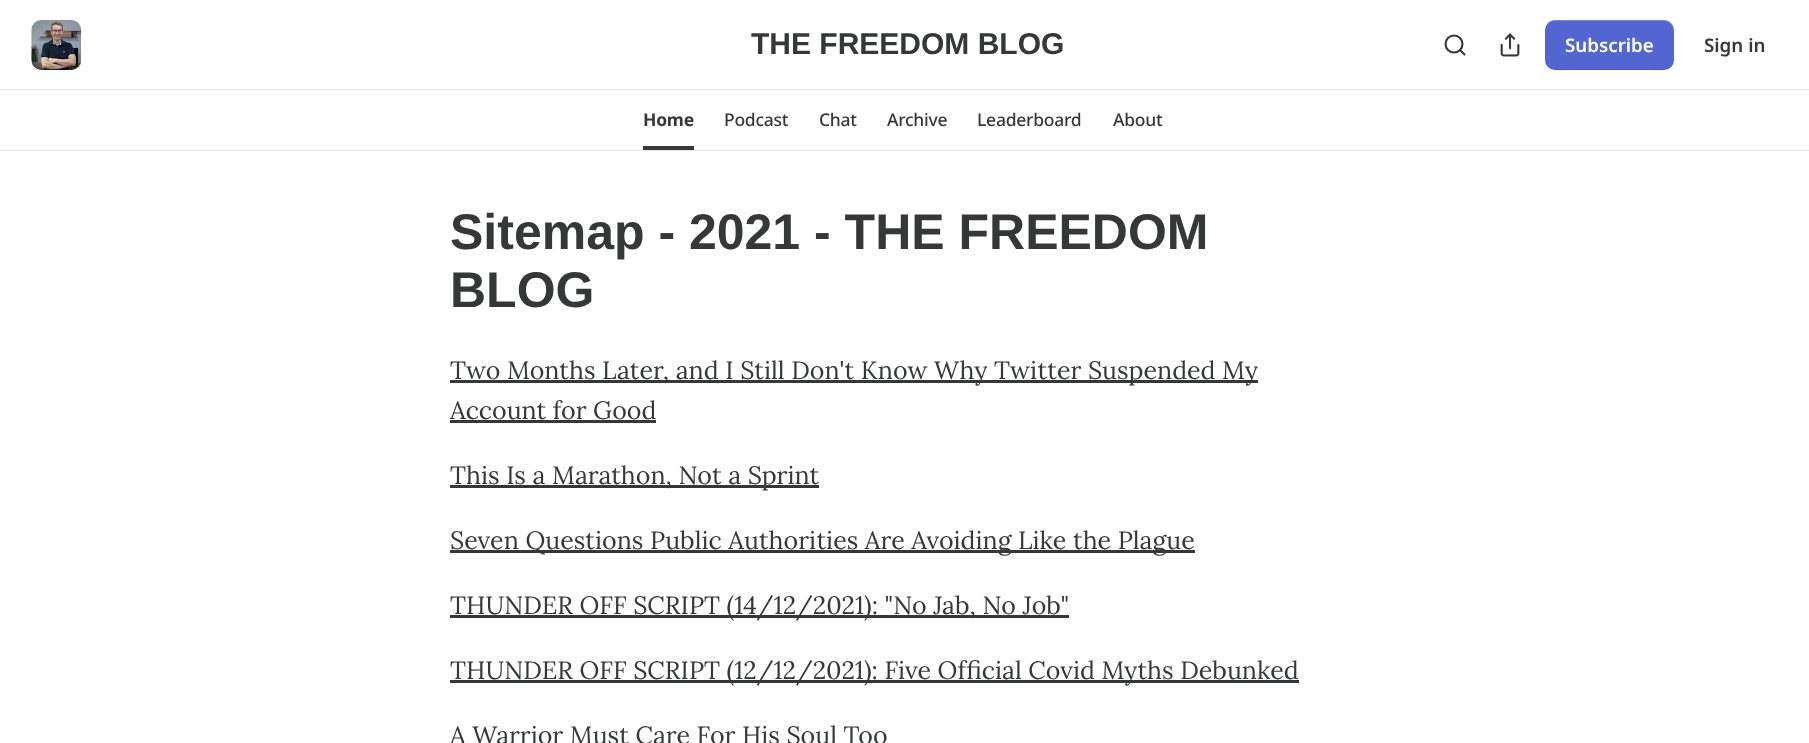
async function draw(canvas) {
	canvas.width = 1809;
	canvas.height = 743;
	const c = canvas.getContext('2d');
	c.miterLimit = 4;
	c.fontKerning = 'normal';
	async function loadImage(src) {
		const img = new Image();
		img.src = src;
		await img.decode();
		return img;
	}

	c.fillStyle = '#fff';
	c.fillRect(0, 0, 1809, 743);
	c.drawImage(await loadImage('img1.png'), 31, 20, 51, 50);
	c.font = 'bold 30px Liberation Sans';
	c.fillStyle = '#363737';
	c.fillText('THE FREEDOM BLOG', 751, 54);
	c.beginPath();
	c.arc(1454, 44, 8.5, 0, 2 * Math.PI);
	c.strokeStyle = '#363737';
	c.lineWidth = 2.1;
	c.stroke();
	c.beginPath();
	c.moveTo(1464.5, 54.5);
	c.lineTo(1460, 50);
	c.lineCap = 'round';
	c.lineJoin = 'round';
	c.stroke();
	c.drawImage(await loadImage('img2.png'), 1500, 33, 20, 24);
	c.fillStyle = '#5365d0';
	c.beginPath();
	c.roundRect(1545, 20, 129, 50, 10);
	c.fill();
	c.fillStyle = '#0000001a';
	c.beginPath();
	c.moveTo(1545, 59);
	c.bezierCurveTo(1545, 74, 1563, 70, 1573, 70);
	c.lineTo(1646, 70);
	c.bezierCurveTo(1656, 70, 1674, 74, 1674, 59);
	c.bezierCurveTo(1674, 64, 1669, 69, 1664, 69);
	c.lineTo(1555, 69);
	c.bezierCurveTo(1549, 69, 1545, 64, 1545, 59);
	c.closePath();
	c.fill();
	c.fillStyle = '#ffffff33';
	c.beginPath();
	c.moveTo(1555, 21);
	c.lineTo(1664, 21);
	c.bezierCurveTo(1669, 21, 1674, 26, 1674, 31);
	c.bezierCurveTo(1674, 16, 1656, 20, 1646, 20);
	c.lineTo(1573, 20);
	c.bezierCurveTo(1563, 20, 1545, 16, 1545, 31);
	c.bezierCurveTo(1545, 26, 1549, 21, 1555, 21);
	c.closePath();
	c.fill();
	c.font = '600 18.75px Noto Sans';
	c.fillStyle = '#fff';
	c.fillText('Subscribe', 1565, 52);
	c.fillStyle = '#363737';
	c.fillText('Sign in', 1704, 52);
	for (const [x, y, w, h, color] of [
		[0, 89, 1809, 1, '#e6e6e6'],
		[0, 150, 1809, 1, '#e6e6e6'],
		[643, 146, 51, 4, '#363737'],
	]) {
		c.fillStyle = color;
		c.fillRect(x, y, w, h);
	}
	c.letterSpacing = '-0.25px';
	c.font = 'bold 17.5px Noto Sans';
	c.fillText('Home', 643, 126);
	c.font = '500 17.5px Noto Sans';
	for (const [text, x, y] of [
		['Podcast', 724, 126],
		['Chat', 819, 126],
		['Archive', 887, 126],
		['Leaderboard', 977, 126],
		['About', 1113, 126],
	]) {
		c.fillText(text, x, y);
	}
	c.letterSpacing = '0px';
	c.font = 'bold 50px Liberation Sans';
	c.fillText('Sitemap - 2021 - THE FREEDOM', 450, 249);
	c.fillText('BLOG', 450, 307);
	c.fillRect(450, 380, 808, 3);
	c.font = '25px Lora';
	c.fillText('Two Months Later, and I Still Don\'t Know Why Twitter Suspended My', 450, 379);
	c.fillText('Account for Good', 450, 419);
	c.fillRect(450, 420, 206, 3);
	c.fillRect(450, 485, 369, 3);
	c.fillText('This Is a Marathon, Not a Sprint', 450, 484);
	c.fillRect(450, 550, 745, 3);
	c.fillText('Seven Questions Public Authorities Are Avoiding Like the Plague', 450, 549);
	c.fillRect(450, 615, 619, 3);
	c.fillText('THUNDER OFF SCRIPT (14/12/2021): "No Jab, No Job"', 450, 614);
	c.fillRect(450, 680, 849, 3);
	c.fillText('THUNDER OFF SCRIPT (12/12/2021): Five Official Covid Myths Debunked', 450, 679);
	c.fillText('A Warrior Must Care For His Soul Too', 450, 744);
}

draw(document.querySelector('canvas'));
